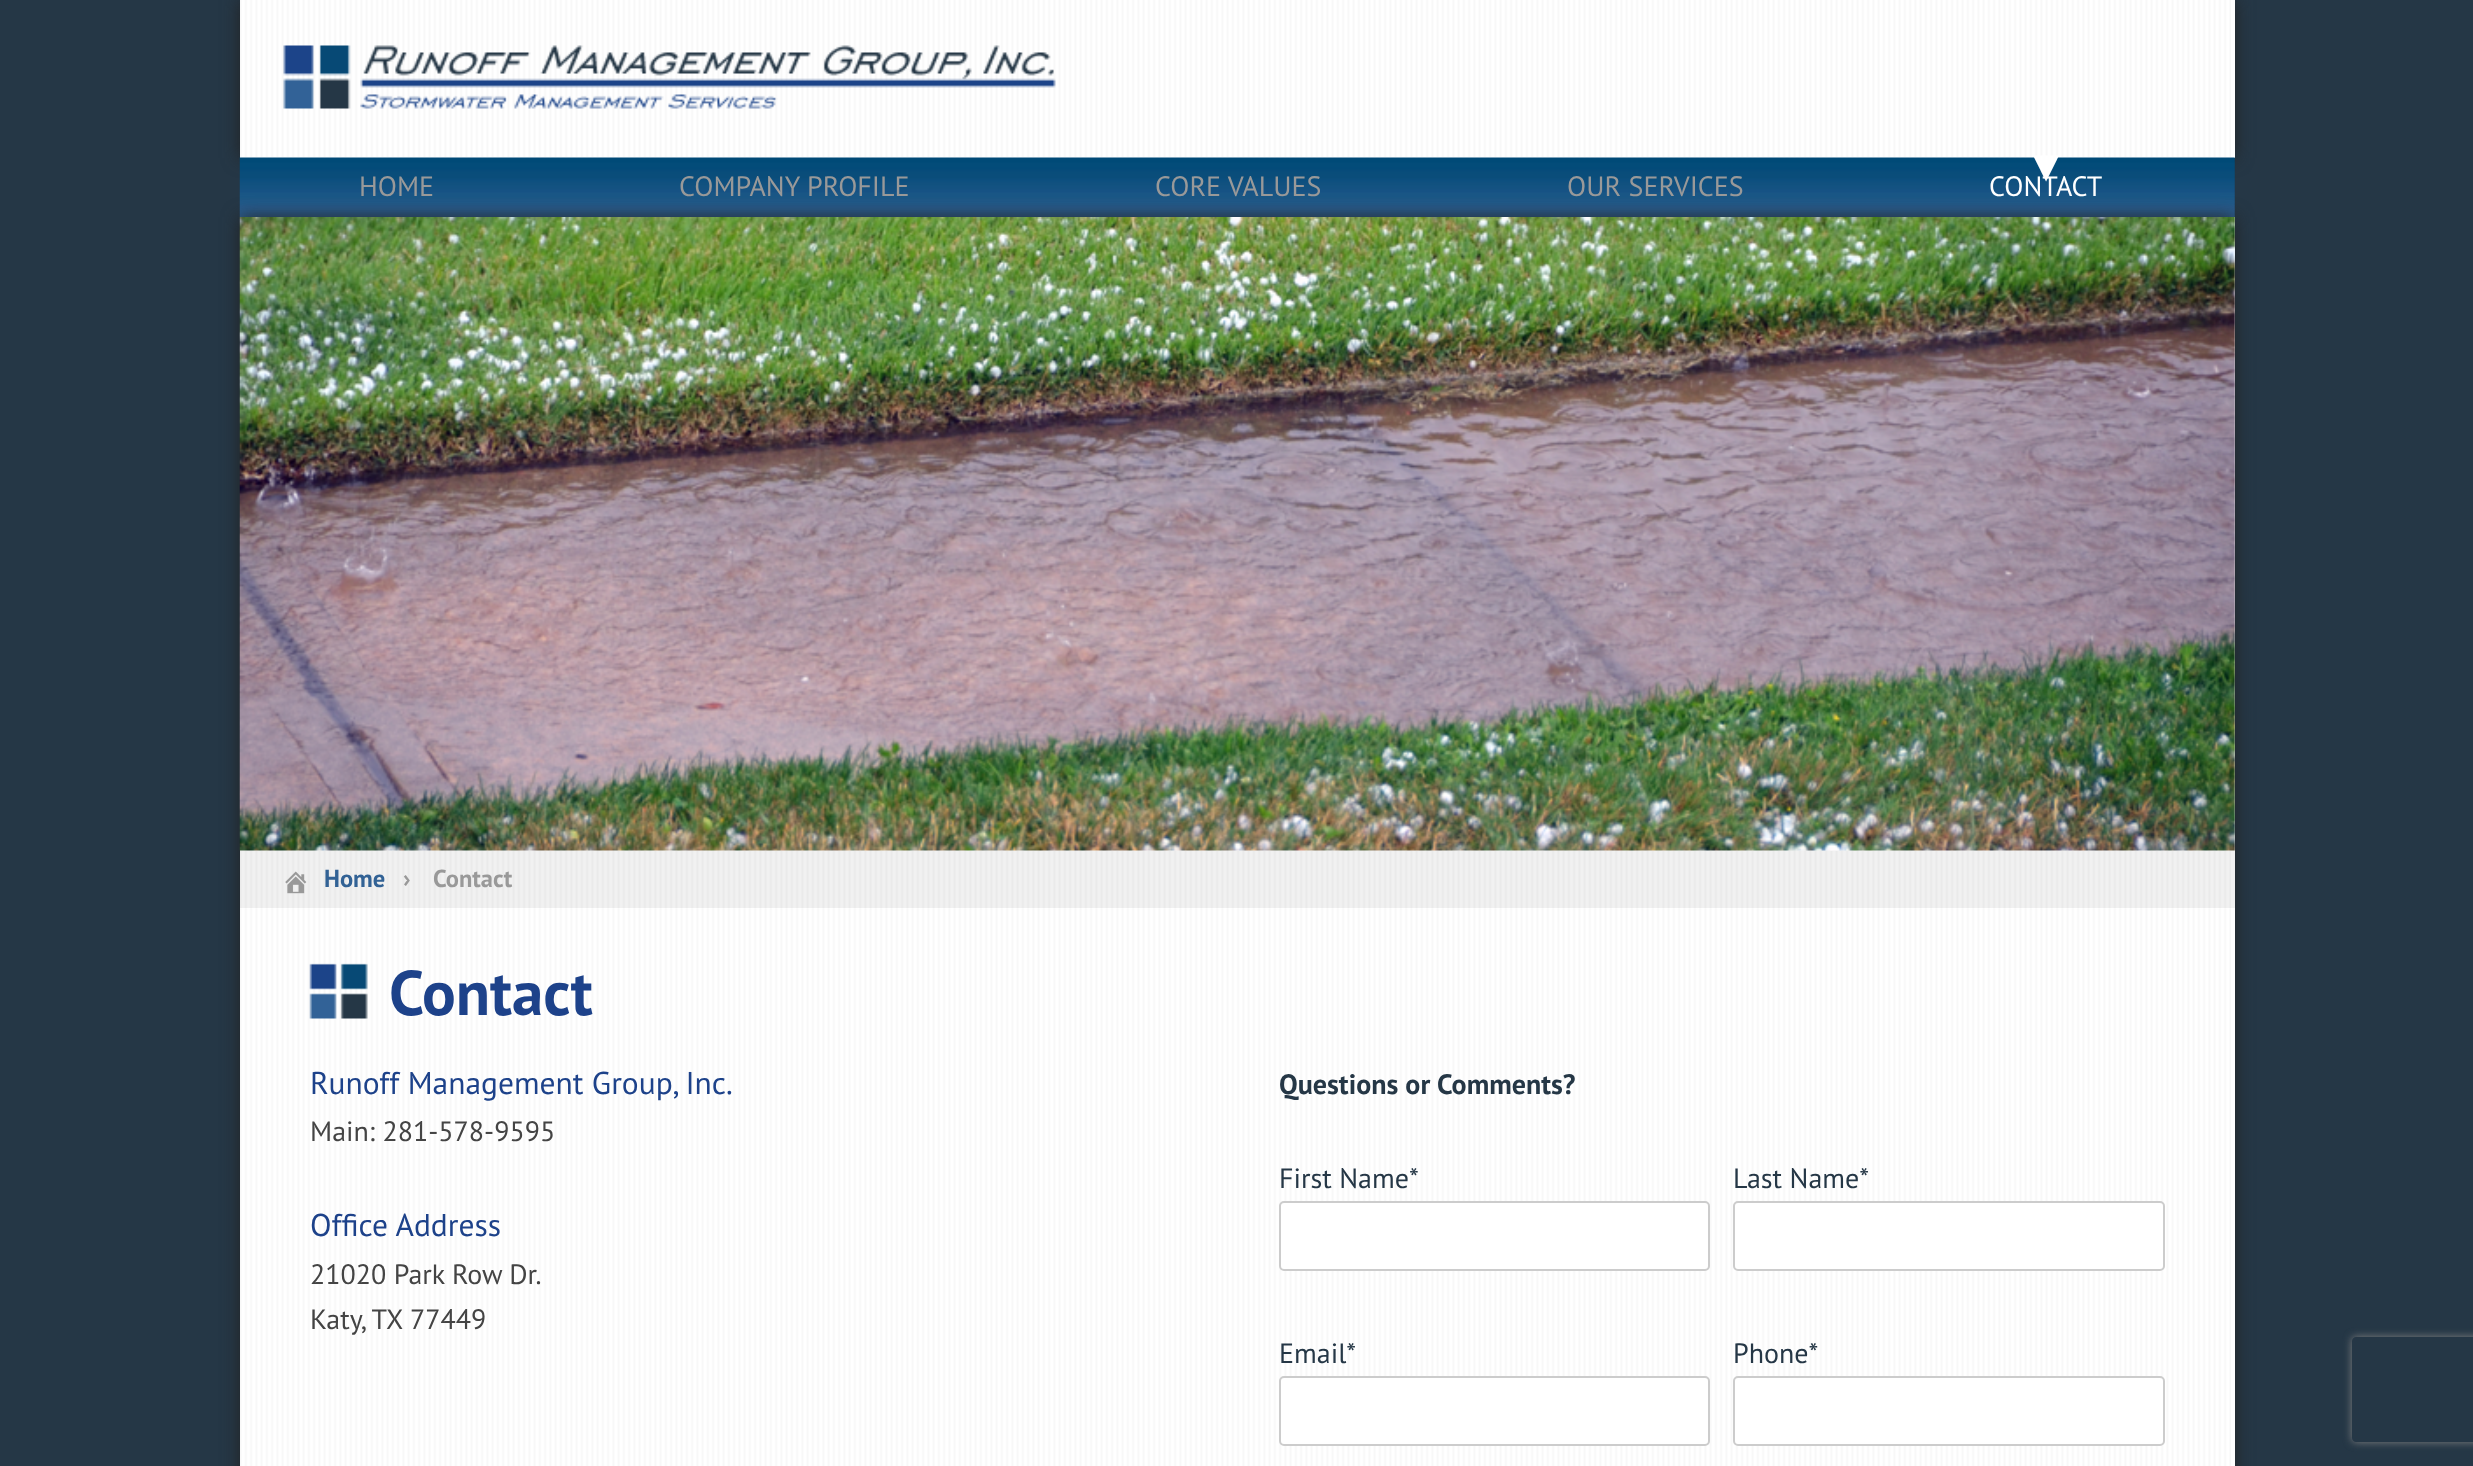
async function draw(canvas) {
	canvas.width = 2473;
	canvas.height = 1466;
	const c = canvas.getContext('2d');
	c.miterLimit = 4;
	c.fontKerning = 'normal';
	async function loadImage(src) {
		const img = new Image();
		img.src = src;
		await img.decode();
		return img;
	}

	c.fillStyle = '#253746';
	c.fillRect(0, 0, 2473, 1466);
	c.fillStyle = '#222';
	c.filter = 'blur(9px)';
	c.beginPath();
	c.rect(240, 0, 1995, 158);
	c.fill();
	c.filter = 'none';
	c.fillStyle = '#fff';
	c.fillRect(240, 0, 1995, 158);
	c.drawImage(await loadImage('img1.png'), 240, 0, 1991, 157);
	c.drawImage(await loadImage('img2.png'), 283, 45, 773, 64);
	c.drawImage(await loadImage('img3.png'), 239, 157, 1996, 60);
	c.fillStyle = '#222';
	c.filter = 'blur(9px)';
	c.beginPath();
	c.rect(240, 217, 1995, 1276);
	c.fill();
	c.filter = 'none';
	c.font = '28px PT Sans';
	c.fillStyle = '#999';
	for (const [text, x, y] of [
		['HOME', 359, 196],
		['COMPANY PROFILE', 679, 196],
		['CORE VALUES', 1155, 196],
		['OUR SERVICES', 1567, 196],
	]) {
		c.fillText(text, x, y);
	}
	c.font = '52px DejaVu Sans';
	c.fillStyle = '#fff';
	c.fillText('▾', 2033, 182);
	c.font = '28px PT Sans';
	c.fillText('CONTACT', 1989, 196);
	c.fillStyle = '#f1f1f1';
	c.fillRect(240, 217, 1995, 691);
	c.drawImage(await loadImage('img4.png'), 239, 217, 1996, 634);
	c.drawImage(await loadImage('img5.png'), 240, 851, 1991, 57);
	c.drawImage(await loadImage('img6.png'), 285, 871, 22, 23);
	c.font = 'bold 24.5px PT Sans';
	c.fillStyle = '#326295';
	c.fillText('Home', 324, 887);
	c.fillStyle = '#999';
	c.fillText('›', 403, 887);
	c.fillText('Contact', 433, 887);
	c.fillStyle = '#fff';
	c.fillRect(240, 908, 1995, 558);
	c.drawImage(await loadImage('img7.png'), 240, 908, 1991, 558);
	c.drawImage(await loadImage('img8.png'), 309, 963, 59, 56);
	c.font = 'bold 63px PT Sans';
	c.fillStyle = '#1d428a';
	c.fillText('Contact', 389, 1015);
	c.font = '31.5px PT Sans';
	c.fillText('Runoff Management Group, Inc.', 310, 1094);
	c.font = '28px PT Sans';
	c.fillStyle = '#444';
	c.fillText('Main: 281-578-9595', 310, 1141);
	c.font = '31.5px PT Sans';
	c.fillStyle = '#1d428a';
	c.fillText('Office Address', 310, 1236);
	c.font = '28px PT Sans';
	c.fillStyle = '#444';
	c.fillText('21020 Park Row Dr.', 310, 1284);
	c.fillText('Katy, TX 77449', 310, 1329);
	c.font = 'bold 28px PT Sans';
	c.fillStyle = '#253746';
	c.fillText('Questions or Comments?', 1279, 1094);
	c.font = '28px PT Sans';
	c.fillText('First Name*', 1279, 1188);
	c.fillStyle = '#fff';
	c.beginPath();
	c.roundRect(1280, 1202, 429, 68, 4);
	c.fill();
	c.strokeStyle = '#ccc';
	c.lineWidth = 2;
	c.stroke();
	c.fillStyle = '#253746';
	c.fillText('Last Name*', 1733, 1188);
	c.fillStyle = '#fff';
	c.beginPath();
	c.roundRect(1734, 1202, 430, 68, 4);
	c.fill();
	c.stroke();
	c.fillStyle = '#253746';
	c.fillText('Email*', 1279, 1363);
	c.fillStyle = '#fff';
	c.beginPath();
	c.roundRect(1280, 1377, 429, 68, 4);
	c.fill();
	c.stroke();
	c.fillStyle = '#253746';
	c.fillText('Phone*', 1733, 1363);
	c.fillStyle = '#fff';
	c.beginPath();
	c.roundRect(1734, 1377, 430, 68, 4);
	c.fill();
	c.stroke();
	c.save();
	c.beginPath();
	c.moveTo(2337, 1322);
	c.lineTo(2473, 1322);
	c.lineTo(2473, 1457);
	c.lineTo(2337, 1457);
	c.closePath();
	c.moveTo(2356, 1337);
	c.lineTo(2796, 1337);
	c.bezierCurveTo(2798, 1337, 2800, 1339, 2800, 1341);
	c.lineTo(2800, 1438);
	c.bezierCurveTo(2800, 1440, 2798, 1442, 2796, 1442);
	c.lineTo(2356, 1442);
	c.bezierCurveTo(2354, 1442, 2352, 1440, 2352, 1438);
	c.lineTo(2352, 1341);
	c.bezierCurveTo(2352, 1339, 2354, 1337, 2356, 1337);
	c.closePath();
	c.clip('evenodd');
	c.fillStyle = '#808080';
	c.filter = 'blur(4.5px)';
	c.beginPath();
	c.roundRect(2352, 1337, 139, 105, 4);
	c.fill();
	c.filter = 'none';
	c.restore();
}

draw(document.querySelector('canvas'));
